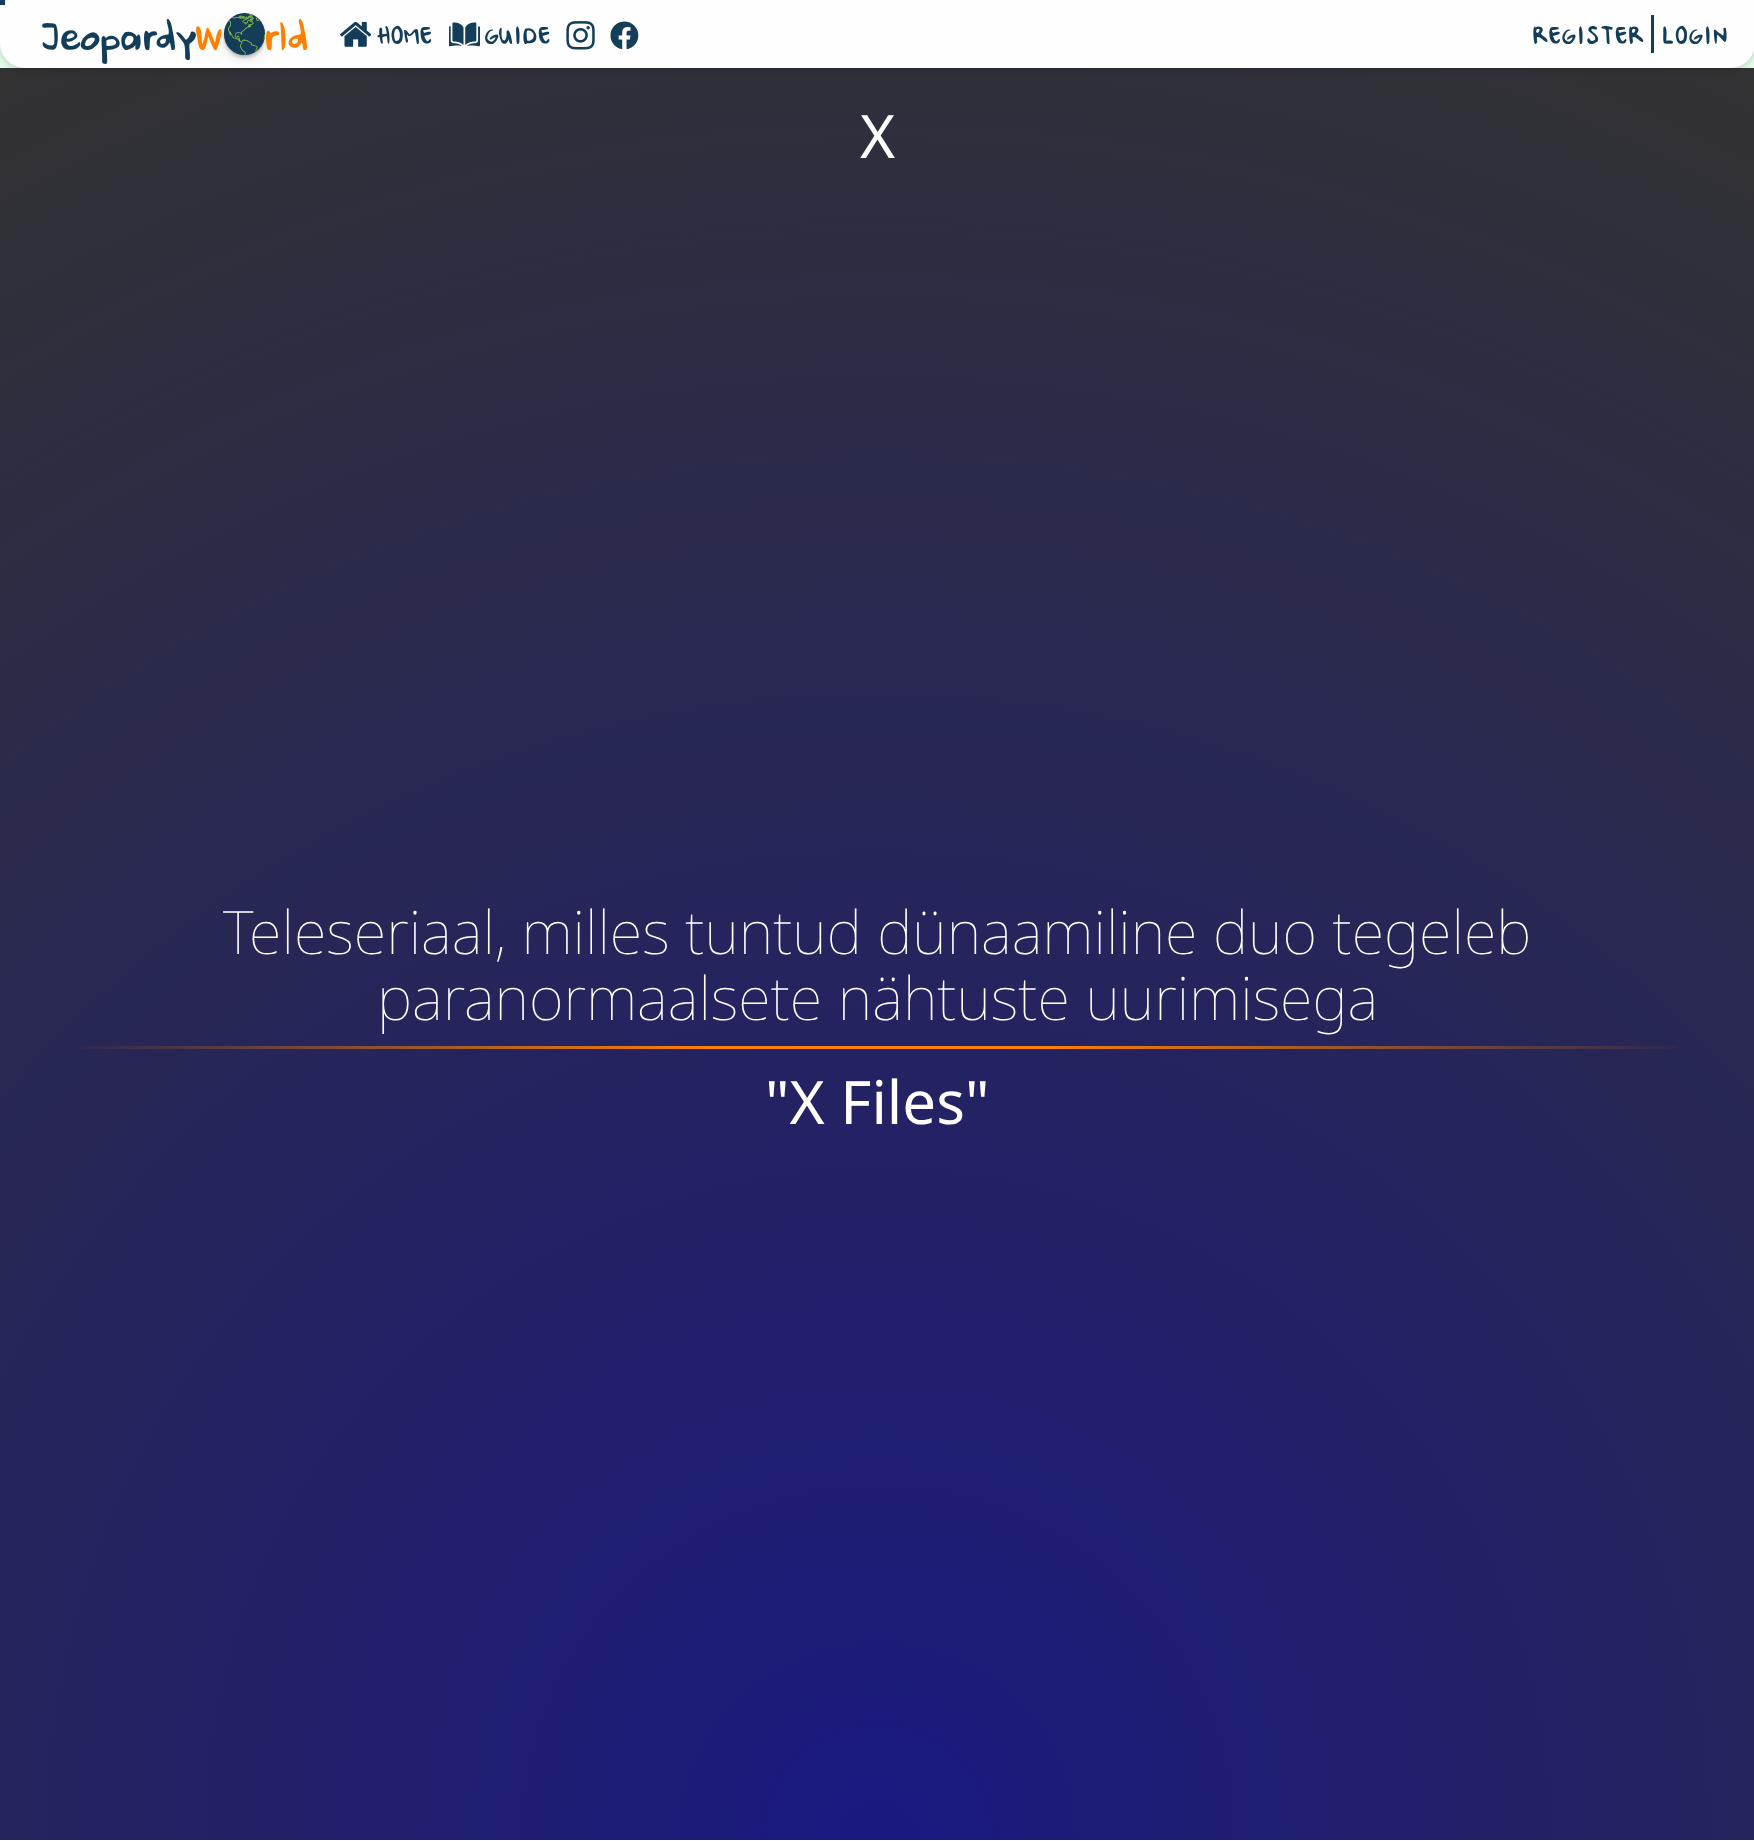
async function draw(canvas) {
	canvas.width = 1754;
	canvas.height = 1841;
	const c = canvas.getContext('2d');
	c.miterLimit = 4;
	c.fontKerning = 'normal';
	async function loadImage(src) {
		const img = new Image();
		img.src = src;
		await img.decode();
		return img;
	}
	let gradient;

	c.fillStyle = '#fff';
	c.fillRect(0, 0, 1754, 1841);
	c.drawImage(await loadImage('img1.png'), 0, 43, 1754, 25);
	gradient = c.createRadialGradient(878, 1840, 0, 878, 1840, 1978);
	gradient.addColorStop(0, '#1a1981');
	gradient.addColorStop(1, '#323232');
	c.fillStyle = gradient;
	c.fillRect(0, 68, 1754, 1772);
	c.fillStyle = '#00000033';
	c.filter = 'blur(3px)';
	c.beginPath();
	c.roundRect(0, 1, 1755, 68, 25);
	c.fill();
	c.filter = 'none';
	c.fillStyle = '#fefefe';
	c.beginPath();
	c.moveTo(0, 0);
	c.lineTo(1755, 0);
	c.lineTo(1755, 43);
	c.bezierCurveTo(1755, 57, 1744, 68, 1730, 68);
	c.lineTo(25, 68);
	c.bezierCurveTo(11, 68, 0, 57, 0, 43);
	c.closePath();
	c.fill();
	c.fillStyle = '#143d59';
	c.fillRect(0, 0, 5, 5);
	c.font = '40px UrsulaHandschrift';
	c.fillText('Jeopardy', 40, 50);
	c.fillStyle = '#1010101a';
	c.filter = 'blur(6.5px)';
	c.beginPath();
	c.roundRect(224, 18, 41, 41, 20.5);
	c.fill();
	c.filter = 'none';
	c.filter = 'blur(2px)';
	c.beginPath();
	c.roundRect(224, 16, 41, 42, 20.5);
	c.fill();
	c.filter = 'none';
	c.filter = 'blur(1px)';
	c.beginPath();
	c.roundRect(224, 16, 41, 42, 20.5);
	c.fill();
	c.filter = 'none';
	c.fillStyle = '#0000001a';
	c.filter = 'blur(0.5px)';
	c.beginPath();
	c.roundRect(224, 15, 41, 41, 20.5);
	c.fill();
	c.filter = 'none';
	c.fillStyle = '#143d59';
	c.beginPath();
	c.roundRect(224, 13, 41, 42, 20.5);
	c.fill();
	c.drawImage(await loadImage('img2.png'), 227, 13, 38, 42);
	c.fillStyle = '#ff8000';
	c.fillText('rld', 264, 50);
	c.fillText('W', 196, 50);
	c.drawImage(await loadImage('img3.png'), 340, 21, 31, 26);
	c.letterSpacing = '1px';
	c.font = '26.25px UrsulaHandschrift';
	c.fillStyle = '#143d59';
	c.fillText('HOME', 377, 44);
	c.drawImage(await loadImage('img4.png'), 449, 22, 31, 25);
	c.fillText('GUIDE', 485, 44);
	c.drawImage(await loadImage('img5.png'), 566, 21, 29, 29);
	c.drawImage(await loadImage('img6.png'), 610, 21, 29, 29);
	c.fillText('REGISTER', 1533, 44);
	c.fillRect(1651, 15, 3, 38);
	c.fillText('LOGIN', 1661, 44);
	c.letterSpacing = '0px';
	c.font = '60px Noto Sans';
	c.fillStyle = '#fff';
	c.fillText('X', 860, 158);
	c.font = '100 60px Noto Sans';
	c.fillText('Teleseriaal, milles tuntud dünaamiline duo tegeleb', 223, 954);
	c.fillText('paranormaalsete nähtuste uurimisega', 377, 1020);
	gradient = c.createLinearGradient(30, 1048, 1725, 1048);
	gradient.addColorStop(0.02, '#ff800000');
	gradient.addColorStop(0.4, '#ff8000');
	gradient.addColorStop(0.6, '#ff8000');
	gradient.addColorStop(0.98, '#ff800000');
	c.fillStyle = gradient;
	c.fillRect(78, 1046, 1599, 3);
	c.font = '60px Noto Sans';
	c.fillStyle = '#fff';
	c.fillText('"X Files"', 765, 1124);
}

draw(document.querySelector('canvas'));
